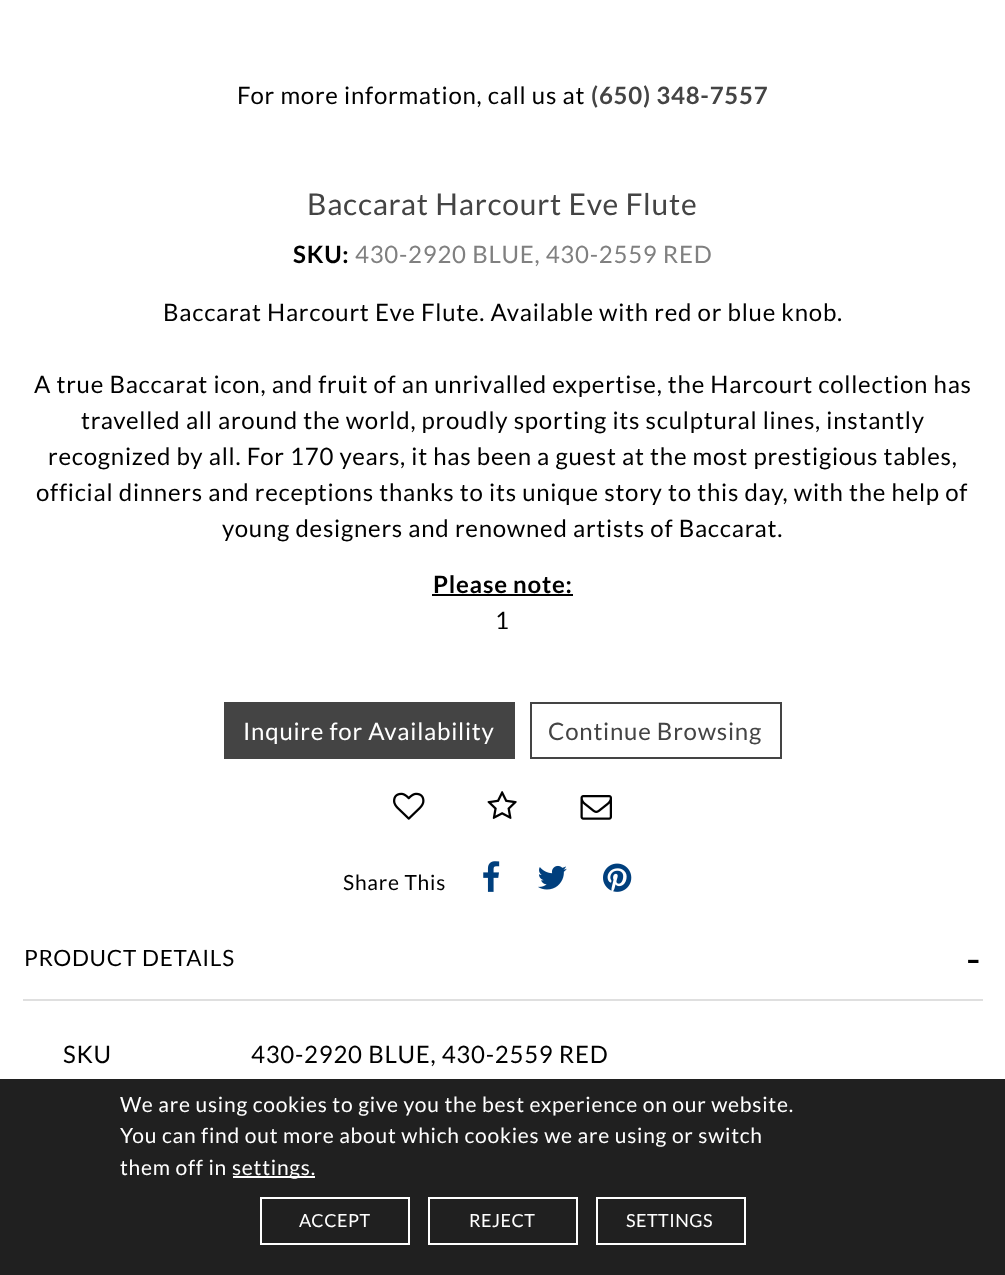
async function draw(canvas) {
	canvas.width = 1005;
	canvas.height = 1275;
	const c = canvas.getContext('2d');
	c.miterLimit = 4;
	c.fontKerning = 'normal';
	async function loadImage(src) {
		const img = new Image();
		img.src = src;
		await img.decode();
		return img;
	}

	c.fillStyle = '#fff';
	c.fillRect(0, 0, 1005, 1275);
	c.letterSpacing = '0.75px';
	c.font = '24px Lato';
	c.fillStyle = '#000';
	c.fillText('For more information, call us at', 237, 104);
	c.font = 'bold 24px Lato';
	c.fillStyle = '#444';
	c.fillText('(650) 348-7557', 591, 104);
	c.font = '30px Lato';
	c.fillText('Baccarat Harcourt Eve Flute', 307, 215);
	c.font = 'bold 24px Lato';
	c.fillStyle = '#000';
	c.fillText('SKU:', 293, 263);
	c.font = '24px Lato';
	c.fillStyle = '#808080';
	c.fillText('430-2920 BLUE, 430-2559 RED', 355, 263);
	c.fillStyle = '#000';
	for (const [text, x, y] of [
		['Baccarat Harcourt Eve Flute. Available with red or blue knob.', 163, 321],
		['A true Baccarat icon, and fruit of an unrivalled expertise, the Harcourt collection has', 34, 393],
		['travelled all around the world, proudly sporting its sculptural lines, instantly', 81, 429],
		['recognized by all. For 170 years, it has been a guest at the most prestigious tables,', 48, 465],
		['official dinners and receptions thanks to its unique story to this day, with the help of', 36, 501],
		['young designers and renowned artists of Baccarat.', 222, 537],
	]) {
		c.fillText(text, x, y);
	}
	c.font = 'bold 24px Lato';
	c.fillText('Please note:', 433, 593);
	c.fillRect(432, 594, 141, 2);
	c.font = '24px Lato';
	c.fillText('1', 495, 629);
	c.fillStyle = '#444';
	c.fillRect(224, 702, 291, 57);
	c.fillStyle = '#fff';
	c.fillText('Inquire for Availability', 243, 740);
	c.strokeStyle = '#444';
	c.lineWidth = 2;
	c.strokeRect(531, 703, 250, 55);
	c.fillStyle = '#444';
	c.fillText('Continue Browsing', 548, 740);
	c.drawImage(await loadImage('img1.png'), 393, 792, 32, 28);
	c.drawImage(await loadImage('img2.png'), 487, 791, 30, 28);
	c.drawImage(await loadImage('img3.png'), 580, 795, 32, 25);
	c.font = '21px Lato';
	c.fillStyle = '#000';
	c.fillText('Share This', 343, 890);
	c.drawImage(await loadImage('img4.png'), 483, 861, 17, 31);
	c.drawImage(await loadImage('img5.png'), 538, 865, 29, 25);
	c.drawImage(await loadImage('img6.png'), 603, 863, 29, 29);
	c.fillStyle = '#dfdfdf';
	c.fillRect(23, 999, 960, 2);
	c.font = '22.5px Lato';
	c.fillStyle = '#000';
	c.fillText('PRODUCT DETAILS', 24, 966);
	c.font = '42px Lato';
	c.fillText('-', 966, 974);
	c.font = '24px Lato';
	c.fillText('SKU', 63, 1063);
	c.fillText('430-2920 BLUE, 430-2559 RED', 251, 1063);
	c.fillStyle = '#202020';
	c.fillRect(0, 1079, 1005, 196);
	c.font = '21px Lato';
	c.fillStyle = '#fff';
	for (const [text, x, y] of [
		['We are using cookies to give you the best experience on our website.', 120, 1112],
		['You can find out more about which cookies we are using or switch', 120, 1143],
		['them off in', 120, 1175],
	]) {
		c.fillText(text, x, y);
	}
	c.fillRect(233, 1176, 82, 2);
	c.fillText('settings.', 232, 1175);
	c.strokeStyle = '#fff';
	c.strokeRect(261, 1198, 148, 46);
	c.letterSpacing = '0.5px';
	c.font = '18px Lato';
	c.fillText('ACCEPT', 299, 1227);
	c.strokeRect(429, 1198, 148, 46);
	c.fillText('REJECT', 469, 1227);
	c.strokeRect(597, 1198, 148, 46);
	c.fillText('SETTINGS', 626, 1227);
}

draw(document.querySelector('canvas'));
